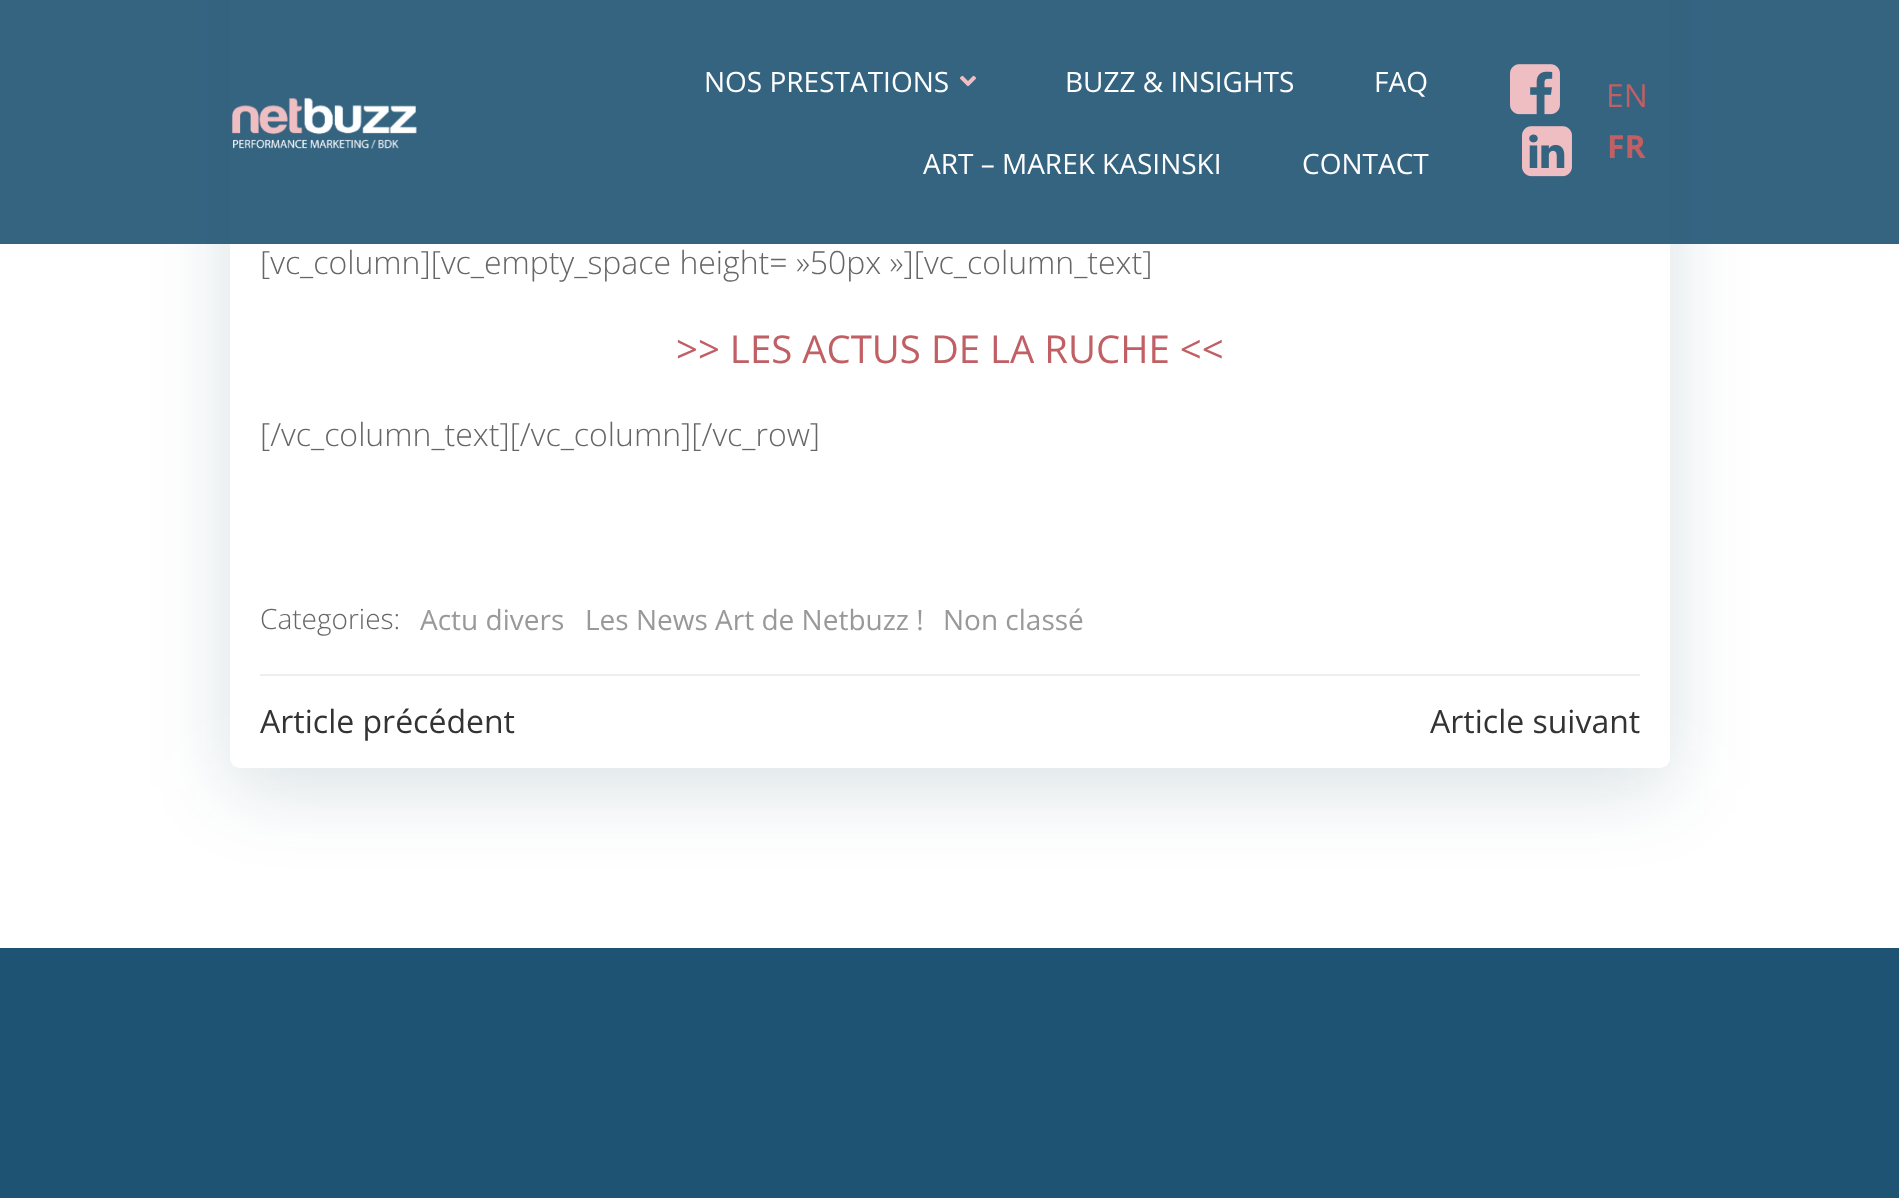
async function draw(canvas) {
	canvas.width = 1899;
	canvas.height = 1198;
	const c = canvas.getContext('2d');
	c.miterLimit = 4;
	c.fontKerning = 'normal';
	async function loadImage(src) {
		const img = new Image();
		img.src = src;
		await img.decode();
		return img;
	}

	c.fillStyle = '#fff';
	c.fillRect(0, 0, 1899, 1198);
	c.fillStyle = '#01334a26';
	c.filter = 'blur(40px)';
	c.beginPath();
	c.roundRect(230, -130, 1440, 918, 10);
	c.fill();
	c.filter = 'none';
	c.fillStyle = '#fff';
	c.beginPath();
	c.roundRect(230, -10, 1440, 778, 10);
	c.fill();
	c.fillStyle = '#1f5373e6';
	c.fillRect(0, 0, 1899, 244);
	c.drawImage(await loadImage('img1.png'), 232, 97, 185, 52);
	c.font = '28px Open Sans';
	c.fillStyle = '#fff';
	c.fillText('NOS PRESTATIONS', 704, 92);
	c.drawImage(await loadImage('img2.png'), 960, 75, 16, 12);
	for (const [text, x, y] of [
		['BUZZ & INSIGHTS', 1065, 92],
		['FAQ', 1374, 92],
		['ART – MAREK KASINSKI', 923, 174],
		['CONTACT', 1302, 174],
	]) {
		c.fillText(text, x, y);
	}
	c.drawImage(await loadImage('img3.png'), 1510, 64, 50, 51);
	c.drawImage(await loadImage('img4.png'), 1522, 126, 50, 51);
	c.font = '32px Open Sans';
	c.fillStyle = '#c05f64';
	c.fillText('EN', 1606, 107);
	c.font = 'bold 32px Open Sans';
	c.fillText('FR', 1607, 158);
	c.font = '300 32px Open Sans';
	c.fillStyle = '#666';
	c.fillText('[vc_column][vc_empty_space height= »50px »][vc_column_text]', 260, 274);
	c.font = '38.4px Open Sans';
	c.fillStyle = '#c05f64';
	c.fillText('>> LES ACTUS DE LA RUCHE <<', 676, 363);
	c.font = '300 32px Open Sans';
	c.fillStyle = '#666';
	c.fillText('[/vc_column_text][/vc_column][/vc_row]', 260, 446);
	c.font = '300 28px Open Sans';
	c.fillText('Categories:', 260, 629);
	c.font = '28px Open Sans';
	c.fillStyle = '#999';
	for (const [text, x, y] of [
		['Actu divers', 420, 630],
		['Les News Art de Netbuzz !', 585, 630],
		['Non classé', 943, 630],
	]) {
		c.fillText(text, x, y);
	}
	c.fillStyle = '#eee';
	c.fillRect(260, 674, 1380, 2);
	c.font = '32px Open Sans';
	c.fillStyle = '#333';
	c.fillText('Article précédent', 260, 733);
	c.fillText('Article suivant', 1430, 733);
	c.fillStyle = '#1f5373';
	c.fillRect(0, 948, 1899, 250);
}

draw(document.querySelector('canvas'));
